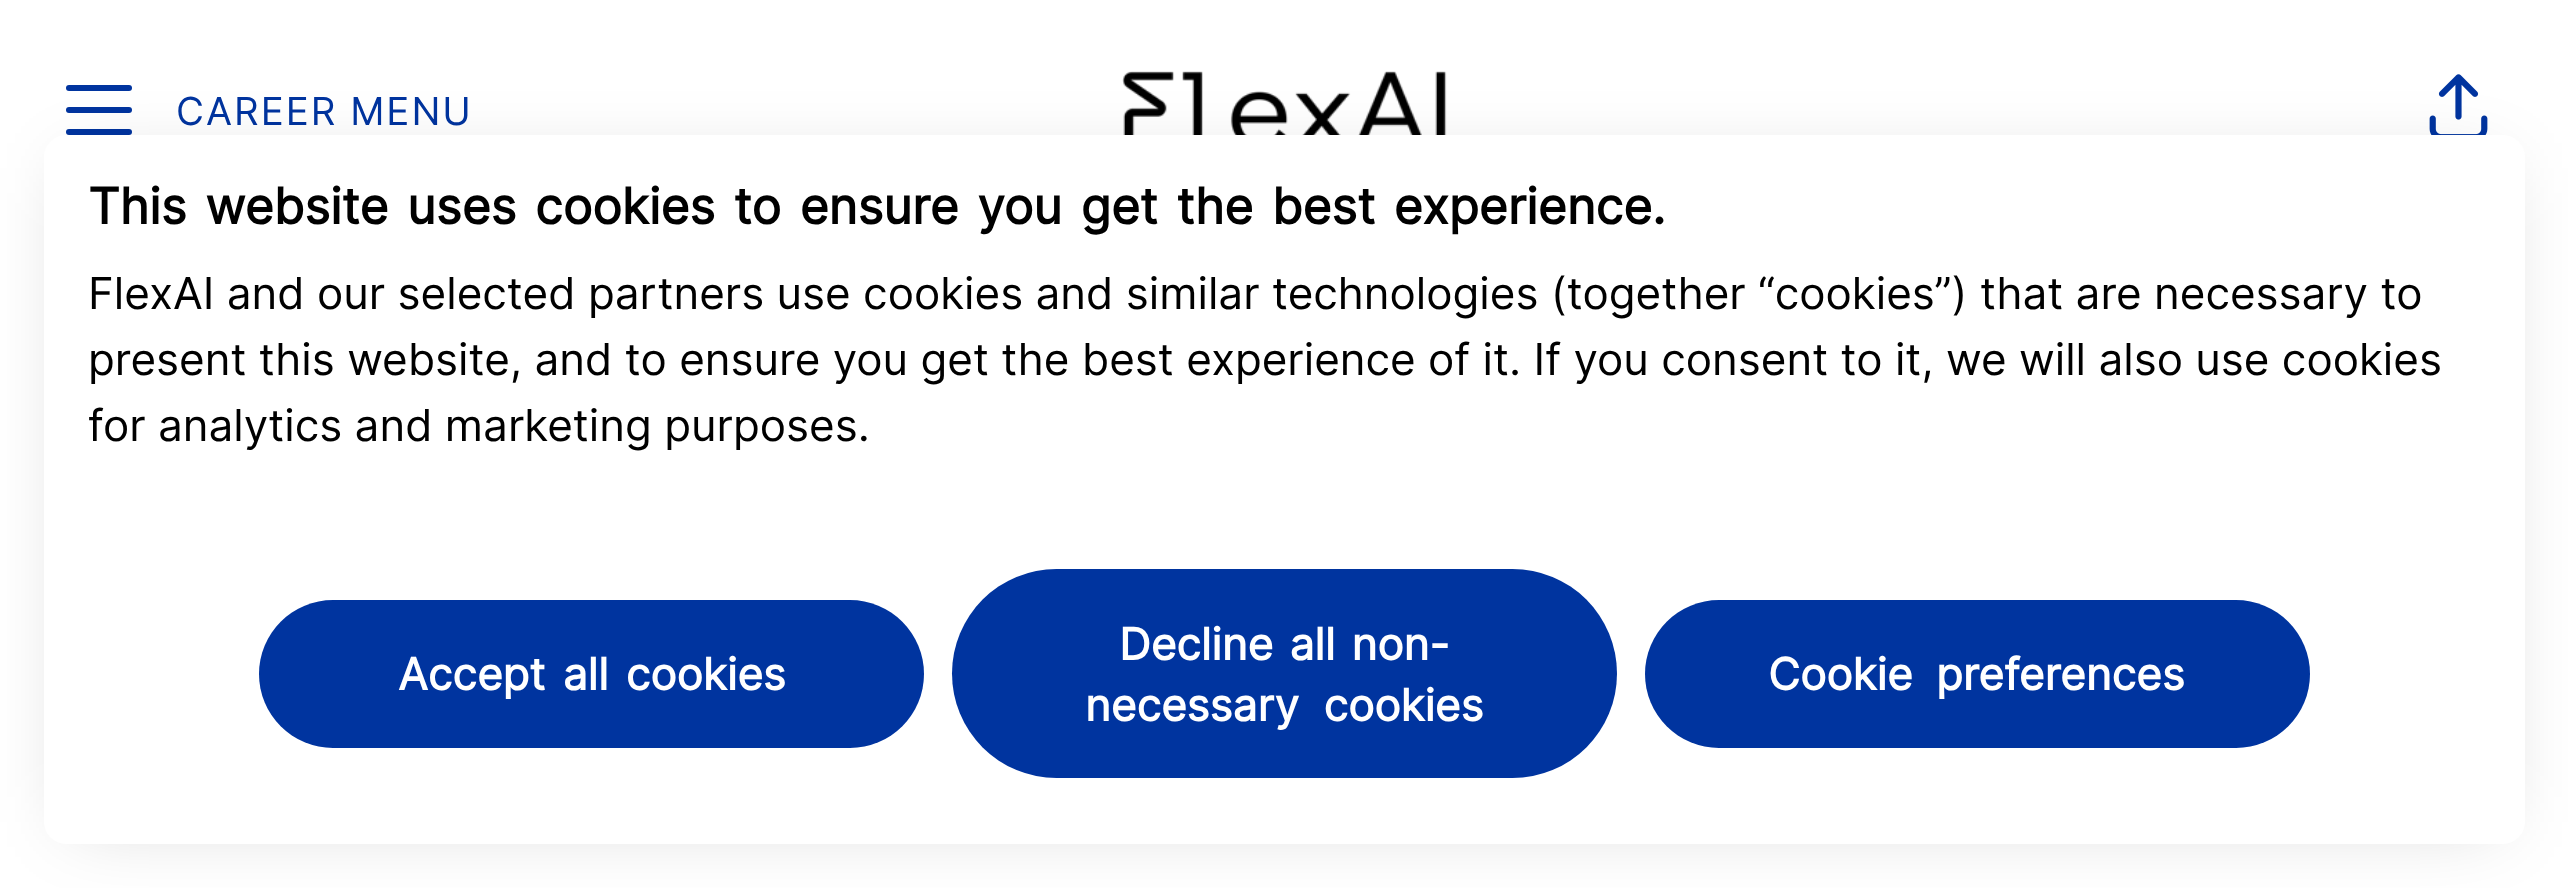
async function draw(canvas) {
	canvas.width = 2568;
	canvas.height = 888;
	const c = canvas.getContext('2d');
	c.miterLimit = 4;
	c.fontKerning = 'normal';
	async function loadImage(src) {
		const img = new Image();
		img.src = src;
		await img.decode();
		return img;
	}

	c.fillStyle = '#fff';
	c.fillRect(0, 0, 2568, 888);
	c.fillStyle = '#00349f';
	c.beginPath();
	c.roundRect(66, 85, 66, 6, 3);
	c.fill();
	c.beginPath();
	c.roundRect(66, 107, 66, 6, 3);
	c.fill();
	c.beginPath();
	c.roundRect(66, 129, 66, 6, 3);
	c.fill();
	c.letterSpacing = '2px';
	c.font = '38.5px Inter';
	c.fillText('CAREER MENU', 176, 125);
	c.drawImage(await loadImage('img1.png'), 1122, 71, 325, 64);
	c.drawImage(await loadImage('img2.png'), 2429, 74, 59, 61);
	c.fillStyle = '#0000002e';
	c.filter = 'blur(37px)';
	c.beginPath();
	c.rect(72, 168, 2425, 654);
	c.fill();
	c.filter = 'none';
	c.fillStyle = '#fff';
	c.beginPath();
	c.roundRect(44, 135, 2481, 709, 22);
	c.fill();
	c.letterSpacing = '0px';
	c.wordSpacing = '4.75px';
	c.font = 'bold 49.5px Inter';
	c.fillStyle = '#000';
	c.fillText('This website uses cookies to ensure you get the best experience.', 88, 224);
	c.wordSpacing = '0px';
	c.font = '44px Inter';
	for (const [text, x, y] of [
		['FlexAI and our selected partners use cookies and similar technologies (together “cookies”) that are necessary to', 88, 309],
		['present this website, and to ensure you get the best experience of it. If you consent to it, we will also use cookies', 88, 375],
		['for analytics and marketing purposes.', 88, 441],
	]) {
		c.fillText(text, x, y);
	}
	c.fillStyle = '#00349f';
	c.beginPath();
	c.roundRect(259, 600, 665, 148, 74);
	c.fill();
	c.wordSpacing = '5px';
	c.font = 'bold 44px Inter';
	c.fillStyle = '#fff';
	c.fillText('Accept all cookies', 398, 690);
	c.fillStyle = '#00349f';
	c.beginPath();
	c.roundRect(952, 569, 665, 209, 104.5);
	c.fill();
	c.wordSpacing = '4px';
	c.fillStyle = '#fff';
	c.fillText('Decline all non-', 1119, 660);
	c.wordSpacing = '12px';
	c.fillText('necessary cookies', 1085, 721);
	c.fillStyle = '#00349f';
	c.beginPath();
	c.roundRect(1645, 600, 665, 148, 74);
	c.fill();
	c.wordSpacing = '11px';
	c.fillStyle = '#fff';
	c.fillText('Cookie preferences', 1768, 690);
}

draw(document.querySelector('canvas'));
